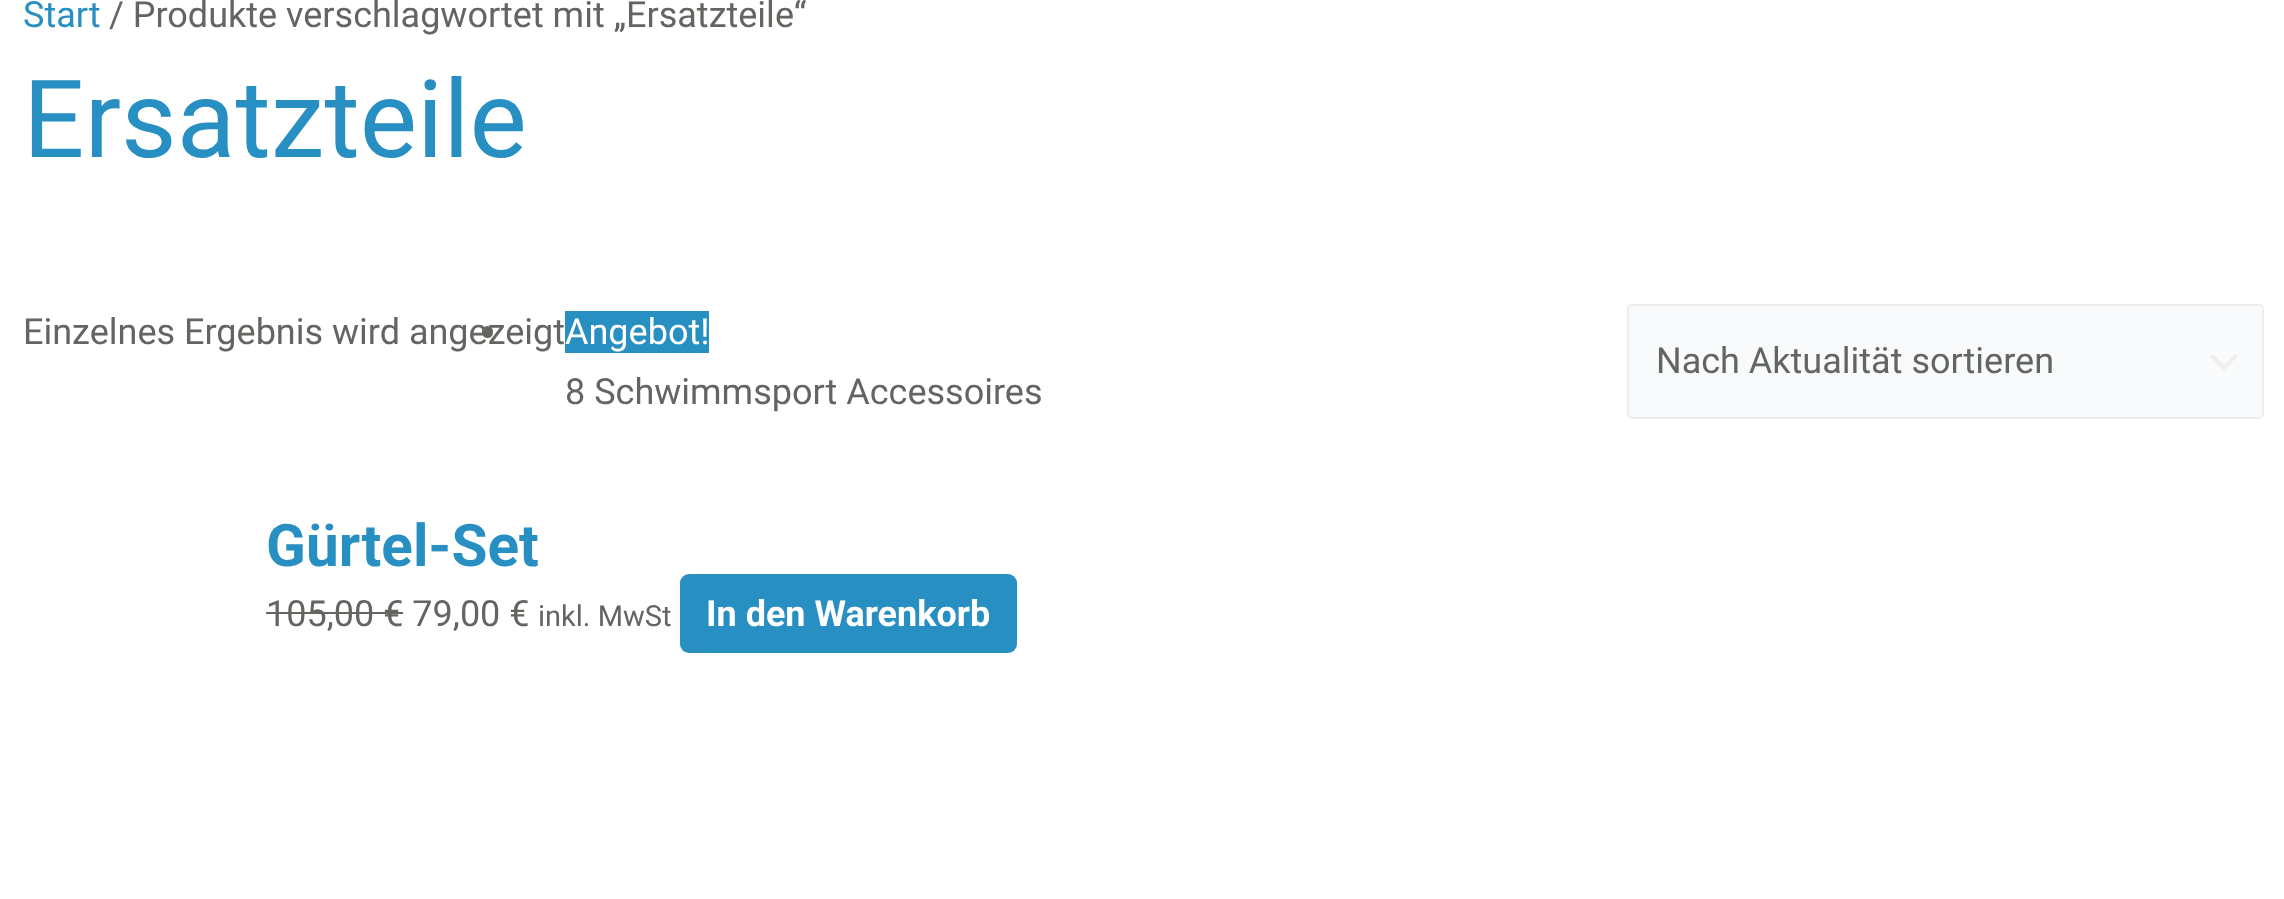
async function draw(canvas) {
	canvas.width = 2284;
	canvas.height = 899;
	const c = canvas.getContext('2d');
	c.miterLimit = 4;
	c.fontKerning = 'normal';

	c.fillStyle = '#fff';
	c.fillRect(0, 0, 2284, 899);
	c.font = '36px Roboto';
	c.fillStyle = '#288fc2';
	c.fillText('Start', 23, 27);
	c.fillStyle = '#636561';
	c.fillText('/ Produkte verschlagwortet mit „Ersatzteile“', 109, 27);
	c.font = '108px Roboto';
	c.fillStyle = '#288fc2';
	c.fillText('Ersatzteile', 23, 157);
	c.font = '36px Roboto';
	c.fillStyle = '#636561';
	c.fillText('Einzelnes Ergebnis wird angezeigt', 23, 344);
	c.beginPath();
	c.roundRect(482, 326, 11, 12, 5.5);
	c.fill();
	c.fillStyle = '#288fc2';
	c.fillRect(565, 311, 144, 42);
	c.fillStyle = '#fff';
	c.fillText('Angebot!', 565, 344);
	c.fillStyle = '#636561';
	c.fillText('8 Schwimmsport Accessoires', 565, 404);
	c.font = 'bold 58.5px Roboto';
	c.fillStyle = '#288fc2';
	c.fillText('Gürtel-Set', 266, 566);
	c.font = '36px Roboto';
	c.fillStyle = '#636561';
	c.fillText('105,00 € 79,00 €', 266, 626);
	c.fillRect(266, 612, 137, 2);
	c.font = '29px Roboto';
	c.fillText('inkl. MwSt', 538, 626);
	c.fillStyle = '#288fc2';
	c.beginPath();
	c.roundRect(680, 574, 337, 79, 9);
	c.fill();
	c.font = 'bold 36px Roboto';
	c.fillStyle = '#fff';
	c.fillText('In den Warenkorb', 706, 626);
	c.fillStyle = '#f9fafb';
	c.beginPath();
	c.roundRect(1627, 304, 637, 115, 5);
	c.fill();
	c.fillStyle = '#eee';
	c.beginPath();
	c.moveTo(2210, 356.5);
	c.lineTo(2224, 370.5);
	c.lineTo(2237.5, 356.5);
	c.lineTo(2235, 354);
	c.lineTo(2224, 365);
	c.lineTo(2213, 354);
	c.closePath();
	c.fill();
	c.beginPath();
	c.roundRect(1628, 305, 635, 113, 4);
	c.strokeStyle = '#eee';
	c.lineWidth = 2;
	c.stroke();
	c.font = '36px Roboto';
	c.fillStyle = '#636561';
	c.fillText('Nach Aktualität sortieren', 1656, 373);
}

draw(document.querySelector('canvas'));
